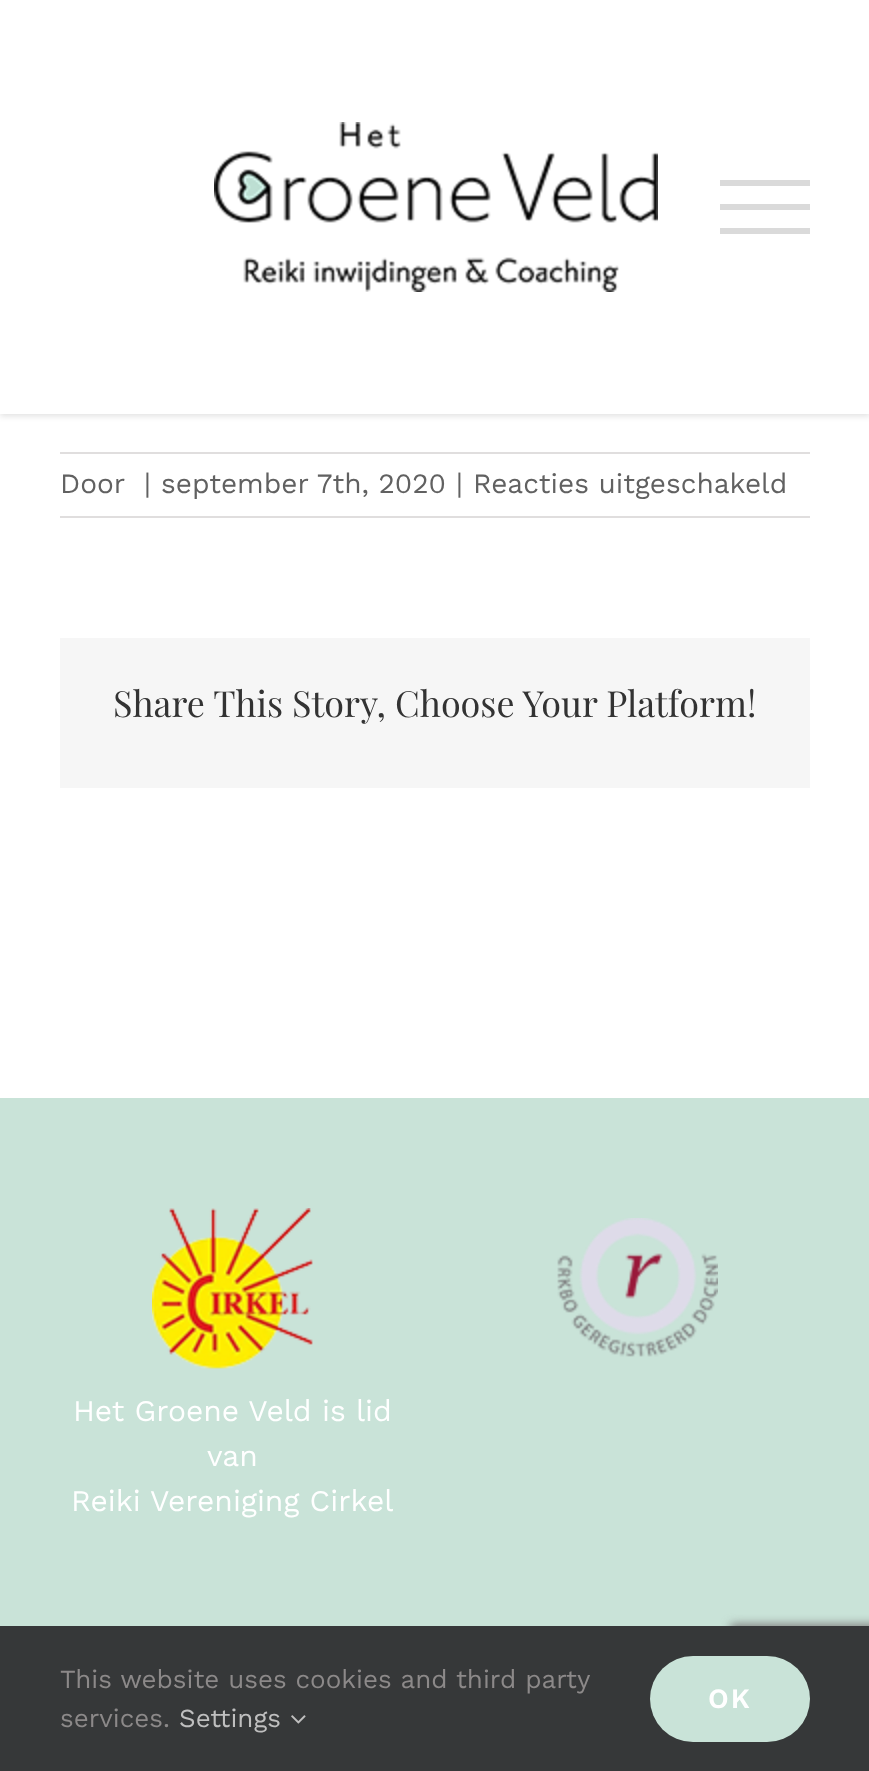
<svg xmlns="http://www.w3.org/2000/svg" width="869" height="1771">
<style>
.a{font:28px Work Sans;fill:#616161}
.b{font:36px Playfair Display;fill:#333}
.c{font:30px Work Sans;fill:#fff}
.d{font:26px Work Sans;fill:#8c8989}
.e{font:26px Work Sans;fill:#bfbfbf}
.f{font:600 28px Work Sans;letter-spacing:2px;fill:#fff}
</style>
<rect width="100%" height="100%" fill="#fff"/>
<path fill="#0000001f" filter="blur(3px)" d="M0 2h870v414H0z"/>
<path fill="#fff" d="M0 0h869v414H0z"/>
<image href="1.png" x="214" y="122" width="444" height="170"/>
<path fill="#dadada" d="M720 180h90v6H720z"/>
<path fill="#dadada" d="M720 204h90v6H720z"/>
<path fill="#dadada" d="M720 228h90v6H720z"/>
<path fill="#e0dede" d="M60 452h750v2H60z"/>
<path fill="#e0dede" d="M60 516h750v2H60z"/>
<path fill="#f6f6f6" d="M60 638h750v150H60z"/>
<path fill="#c9e3d8" d="M0 1098h869v528H0z"/>
<image href="2.png" x="557" y="1218" width="161" height="139"/>
<image href="3.png" x="152" y="1208" width="161" height="161"/>
<rect fill="#808080" filter="blur(5px)" x="730" y="1624" width="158" height="120" rx="4"/>
<path fill="#363839" d="M0 1626h869v145H0z"/>
<image href="4.png" x="291" y="1715" width="15" height="9"/>
<rect fill="#c9e3d8" x="650" y="1656" width="160" height="86" rx="43"/>
<text class="a" x="60" y="493">Door</text>
<text class="a" x="144" y="493">|</text>
<text class="a" x="161" y="493">september 7th, 2020</text>
<text class="a" x="456" y="493">|</text>
<text class="a" x="473" y="493">Reacties uitgeschakeld</text>
<text class="b" x="113" y="717">Share This Story, Choose Your Platform!</text>
<text class="c" x="73" y="1421">Het Groene Veld is lid</text>
<text class="c" x="207" y="1466">van</text>
<text class="c" x="71" y="1511">Reiki Vereniging Cirkel</text>
<text class="d" x="60" y="1688">This website uses cookies and third party</text>
<text class="d" x="60" y="1727">services.</text>
<text class="e" x="179" y="1727">Settings</text>
<text class="f" x="708" y="1708">OK</text>
</svg>
